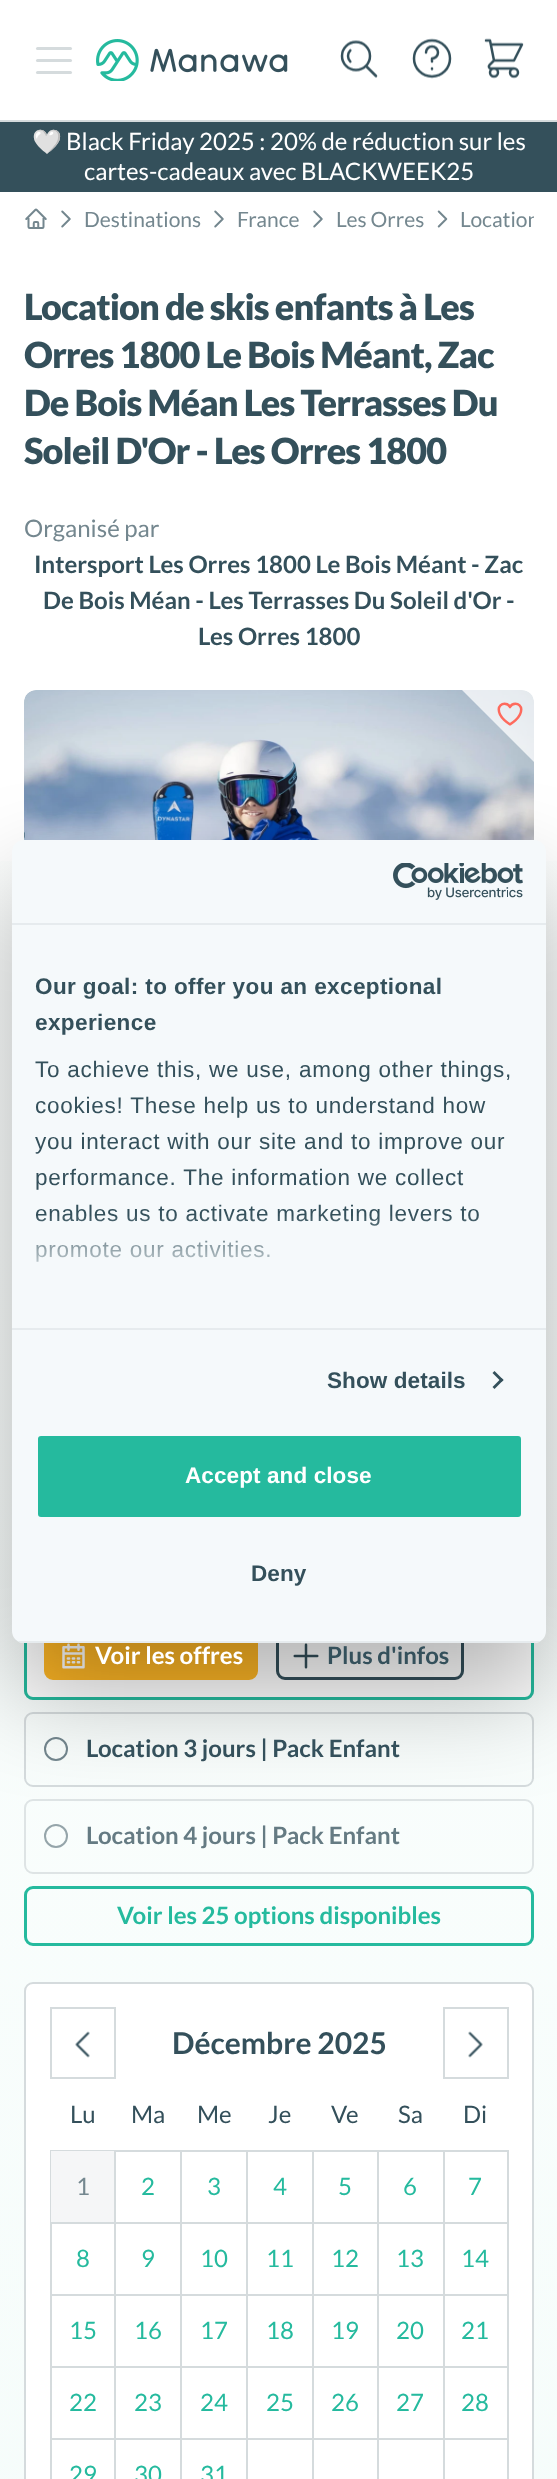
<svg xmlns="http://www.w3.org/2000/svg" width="557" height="2479">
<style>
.a{font:24px Noto Color Emoji;fill:#fff}
.b{font:24px Lato;fill:#fff}
.c{font:21px Lato;fill:#74878f}
.d{font:900 36px Lato;letter-spacing:-0.9px;fill:#34505b}
.e{font:24px Lato;fill:#74878f}
.f{font:bold 24px Lato;fill:#34505b}
.g{font:bold 24px Lato;fill:#fff}
.h{font:bold 24px Lato;fill:#657b83}
.i{font:bold 24px Lato;fill:#25ba9e}
.j{font:bold 30px Lato;fill:#34505b}
.k{font:24px Lato;fill:#34505b}
.l{font:24px Lato;fill:#25ba9e}
.m{font:bold 22.5px Liberation Sans;letter-spacing:0.4px;fill:#34505b}
.n{font:22.5px Liberation Sans;letter-spacing:0.75px;fill:#34505b}
.o{font:bold 22.5px Liberation Sans;letter-spacing:0.1px;fill:#34505b}
.p{font:bold 22.5px Liberation Sans;letter-spacing:0.1px;fill:#fff}
</style>
<defs>
<linearGradient id="g1" gradientUnits="userSpaceOnUse" x1="279" y1="246" x2="279" y2="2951"><stop offset="0" stop-color="#fff"/><stop offset="1" stop-color="#f4fcfa"/></linearGradient>
<clipPath id="clip1"><rect x="12" y="840" width="534" height="803" rx="12"/></clipPath>
<clipPath id="clip2"><path d="M461 204h73v30H461z"/></clipPath>
<linearGradient id="g2" gradientUnits="userSpaceOnUse" x1="269" y1="1327" x2="269" y2="1214"><stop offset="0" stop-color="#f5f9fb"/><stop offset="0.5" stop-color="#f5f9fb" stop-opacity="0.8"/><stop offset="1" stop-color="#f5f9fb" stop-opacity="0"/></linearGradient>
</defs>
<rect width="100%" height="100%" fill="#fff"/>
<path fill="#d5dbdd" d="M0 120h557v2H0z"/>
<rect fill="#d5dbdd" x="36" y="47" width="36" height="3" rx="1.5"/>
<rect fill="#d5dbdd" x="36" y="59" width="36" height="3" rx="1.5"/>
<rect fill="#d5dbdd" x="36" y="71" width="36" height="3" rx="1.5"/>
<image href="1.png" x="96" y="39" width="192" height="42"/>
<image href="2.png" x="340" y="40" width="38" height="38"/>
<image href="3.png" x="412" y="38" width="40" height="41"/>
<image href="4.png" x="484" y="38" width="40" height="41"/>
<path fill="#34505b" d="M0 122h557v70H0z"/>
<image href="5.png" x="25" y="208" width="22" height="21"/>
<image href="6.png" x="61" y="210" width="10" height="18"/>
<image href="6.png" x="214" y="210" width="10" height="18"/>
<image href="6.png" x="313" y="210" width="10" height="18"/>
<image href="7.png" x="437" y="210" width="11" height="18"/>
<path fill="url(#g1)" d="M0 861h557v1618H0z"/>
<rect fill="#f5f6f7" x="24" y="690" width="510" height="341" rx="12"/>
<image href="8.png" x="24" y="690" width="510" height="150"/>
<path fill="#ffffffbf" d="M534 690v72l-72-72z"/>
<image href="9.png" x="497" y="702" width="26" height="24"/>
<rect fill="#fff" stroke="#d5dbdd" stroke-width="2" x="25" y="1404" width="508" height="295" rx="8"/>
<rect fill="none" stroke="#25ba9e" stroke-width="3" x="25.5" y="1404.5" width="507" height="294" rx="7.5"/>
<rect fill="#ffb725" stroke="#ffb725" stroke-width="3" x="45.5" y="1633.5" width="211" height="45" rx="7.5"/>
<image href="10.png" x="62" y="1643" width="23" height="26"/>
<rect fill="none" stroke="#34505b" stroke-width="3" x="277.5" y="1633.5" width="185" height="45" rx="7.5"/>
<image href="11.png" x="293" y="1643" width="26" height="26"/>
<rect fill="none" stroke="#d5dbdd" stroke-width="2" x="25" y="1713" width="508" height="73" rx="8"/>
<circle fill="none" stroke="#74878f" stroke-width="2" cx="56" cy="1749" r="11"/>
<rect fill="none" stroke="#dee4e5" stroke-width="2" x="25" y="1800" width="508" height="73" rx="8"/>
<circle fill="none" stroke="#95a5aa" stroke-width="2" cx="56" cy="1836" r="11"/>
<rect fill="none" stroke="#25ba9e" stroke-width="3" x="25.5" y="1887.5" width="507" height="57" rx="7.5"/>
<rect fill="#fff" stroke="#d5dbdd" stroke-width="2" x="25" y="1983" width="508" height="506" rx="8"/>
<path fill="none" stroke="#d5dbdd" stroke-width="2" d="M51 2008h64v70H51z"/>
<image href="12.png" x="75" y="2031" width="15" height="27"/>
<path fill="none" stroke="#d5dbdd" stroke-width="2" d="M444 2008h64v70H444z"/>
<image href="13.png" x="468" y="2031" width="15" height="27"/>
<path fill="#d5dbdd" d="M443 2150h66v2H443z"/>
<path fill="#d5dbdd" d="M443 2222h66v2H443z"/>
<path fill="#d5dbdd" d="M443 2294h66v2H443z"/>
<path fill="#d5dbdd" d="M443 2366h66v2H443z"/>
<path fill="#d5dbdd" d="M443 2438h66v2H443z"/>
<path fill="#d5dbdd" d="M443 2438h2v41H443z"/>
<path fill="#d5dbdd" d="M377 2438h67v2H377z"/>
<path fill="#d5dbdd" d="M443 2366h2v73H443z"/>
<path fill="#d5dbdd" d="M377 2366h67v2H377z"/>
<path fill="#d5dbdd" d="M443 2294h2v73H443z"/>
<path fill="#d5dbdd" d="M377 2294h67v2H377z"/>
<path fill="#d5dbdd" d="M443 2222h2v73H443z"/>
<path fill="#d5dbdd" d="M377 2222h67v2H377z"/>
<path fill="#d5dbdd" d="M443 2150h2v73H443z"/>
<path fill="#d5dbdd" d="M377 2150h67v2H377z"/>
<path fill="#d5dbdd" d="M377 2438h2v41H377z"/>
<path fill="#d5dbdd" d="M312 2438h66v2H312z"/>
<path fill="#d5dbdd" d="M377 2366h2v73H377z"/>
<path fill="#d5dbdd" d="M312 2366h66v2H312z"/>
<path fill="#d5dbdd" d="M377 2294h2v73H377z"/>
<path fill="#d5dbdd" d="M312 2294h66v2H312z"/>
<path fill="#d5dbdd" d="M377 2222h2v73H377z"/>
<path fill="#d5dbdd" d="M312 2222h66v2H312z"/>
<path fill="#d5dbdd" d="M377 2150h2v73H377z"/>
<path fill="#d5dbdd" d="M312 2150h66v2H312z"/>
<path fill="#d5dbdd" d="M312 2438h2v41H312z"/>
<path fill="#d5dbdd" d="M246 2438h68v2H246z"/>
<path fill="#d5dbdd" d="M312 2366h2v73H312z"/>
<path fill="#d5dbdd" d="M246 2366h68v2H246z"/>
<path fill="#d5dbdd" d="M312 2294h2v73H312z"/>
<path fill="#d5dbdd" d="M246 2294h68v2H246z"/>
<path fill="#d5dbdd" d="M312 2222h2v73H312z"/>
<path fill="#d5dbdd" d="M246 2222h68v2H246z"/>
<path fill="#d5dbdd" d="M312 2150h2v73H312z"/>
<path fill="#d5dbdd" d="M246 2150h68v2H246z"/>
<path fill="#d5dbdd" d="M246 2438h2v41H246z"/>
<path fill="#d5dbdd" d="M180 2438h68v2H180z"/>
<path fill="#d5dbdd" d="M246 2366h2v73H246z"/>
<path fill="#d5dbdd" d="M180 2366h68v2H180z"/>
<path fill="#d5dbdd" d="M246 2294h2v73H246z"/>
<path fill="#d5dbdd" d="M180 2294h68v2H180z"/>
<path fill="#d5dbdd" d="M246 2222h2v73H246z"/>
<path fill="#d5dbdd" d="M180 2222h68v2H180z"/>
<path fill="#d5dbdd" d="M246 2150h2v73H246z"/>
<path fill="#d5dbdd" d="M180 2150h68v2H180z"/>
<path fill="#d5dbdd" d="M180 2438h2v41H180z"/>
<path fill="#d5dbdd" d="M114 2438h68v2H114z"/>
<path fill="#d5dbdd" d="M180 2366h2v73H180z"/>
<path fill="#d5dbdd" d="M114 2366h68v2H114z"/>
<path fill="#d5dbdd" d="M180 2294h2v73H180z"/>
<path fill="#d5dbdd" d="M114 2294h68v2H114z"/>
<path fill="#d5dbdd" d="M180 2222h2v73H180z"/>
<path fill="#d5dbdd" d="M114 2222h68v2H114z"/>
<path fill="#d5dbdd" d="M180 2150h2v73H180z"/>
<path fill="#d5dbdd" d="M114 2150h68v2H114z"/>
<path fill="#d5dbdd" d="M114 2438h2v41H114z"/>
<path fill="#d5dbdd" d="M50 2438h66v2H50z"/>
<path fill="#d5dbdd" d="M114 2366h2v73H114z"/>
<path fill="#d5dbdd" d="M50 2366h66v2H50z"/>
<path fill="#d5dbdd" d="M114 2294h2v73H114z"/>
<path fill="#d5dbdd" d="M50 2294h66v2H50z"/>
<path fill="#d5dbdd" d="M114 2222h2v73H114z"/>
<path fill="#d5dbdd" d="M50 2222h66v2H50z"/>
<path fill="#d5dbdd" d="M114 2150h2v73H114z"/>
<path fill="#d5dbdd" d="M50 2150h66v2H50z"/>
<path fill="#d5dbdd" d="M50 2438h2v41H50z"/>
<path fill="#d5dbdd" d="M50 2366h2v73H50z"/>
<path fill="#d5dbdd" d="M50 2294h2v73H50z"/>
<path fill="#d5dbdd" d="M50 2222h2v73H50z"/>
<path fill="#d5dbdd" d="M50 2150h2v73H50z"/>
<path fill="#f5f6f7" d="M51 2151h63v71H51z"/>
<path fill="#d5dbdd" d="M507 2438h2v41H507z"/>
<path fill="#d5dbdd" d="M507 2366h2v73H507z"/>
<path fill="#d5dbdd" d="M507 2294h2v73H507z"/>
<path fill="#d5dbdd" d="M507 2222h2v73H507z"/>
<path fill="#d5dbdd" d="M507 2150h2v73H507z"/>
<rect fill="#0000004d" filter="blur(51px)" x="12" y="888" width="534" height="803" rx="12"/>
<rect fill="#f5f9fb" x="12" y="840" width="534" height="803" rx="12"/>
<path fill="#e6ebee" d="M12 923h534v2H12z"/>
<image href="14.png" x="393" y="863" width="130" height="37"/>
<path fill="#e6ebee" d="M12 1328h534v2H12z"/>
<path fill="#34505b" d="M494.5 1371l9 9l-2 2l-9-9z"/>
<path fill="#34505b" d="M501.5 1378l2 2l-9 9l-2-2z"/>
<g clip-path="url(#clip1)">
<path fill="#e6ebee" d="M12 1641h534v2H12z"/>
</g>
<rect fill="#25ba9e" stroke="#f5f9fb" stroke-width="3" x="36.5" y="1434.5" width="486" height="84" rx="4.5"/>
<text class="a" x="32" y="150">🤍</text>
<text class="b" x="66" y="150">Black Friday 2025 : 20% de réduction sur les</text>
<text class="b" x="84" y="180">cartes-cadeaux avec BLACKWEEK25</text>
<text class="c" x="84" y="227">Destinations</text>
<text class="c" x="237" y="227">France</text>
<text class="c" x="336" y="227">Les Orres</text>
<g clip-path="url(#clip2)">
<text class="c" x="460" y="227">Location</text>
</g>
<text class="d" x="24" y="320">Location de skis enfants à Les</text>
<text class="d" x="24" y="368">Orres 1800 Le Bois Méant, Zac</text>
<text class="d" x="24" y="416">De Bois Méan Les Terrasses Du</text>
<text class="d" x="24" y="464">Soleil D'Or - Les Orres 1800</text>
<text class="e" x="24" y="537">Organisé par</text>
<text class="f" x="34" y="573">Intersport Les Orres 1800 Le Bois Méant - Zac</text>
<text class="f" x="43" y="609">De Bois Méan - Les Terrasses Du Soleil d'Or -</text>
<text class="f" x="198" y="645">Les Orres 1800</text>
<text class="g" x="95" y="1664">Voir les offres</text>
<text class="f" x="327" y="1664">Plus d'infos</text>
<text class="f" x="86" y="1757">Location 3 jours | Pack Enfant</text>
<text class="h" x="86" y="1844">Location 4 jours | Pack Enfant</text>
<text class="i" x="117" y="1924">Voir les 25 options disponibles</text>
<text class="j" x="172" y="2054">Décembre 2025</text>
<text class="k" x="70" y="2123">Lu</text>
<text class="k" x="131" y="2123">Ma</text>
<text class="k" x="197" y="2123">Me</text>
<text class="k" x="268" y="2123">Je</text>
<text class="k" x="331" y="2123">Ve</text>
<text class="k" x="398" y="2123">Sa</text>
<text class="k" x="463" y="2123">Di</text>
<text class="e" x="76" y="2195">1</text>
<text class="l" x="141" y="2195">2</text>
<text class="l" x="207" y="2195">3</text>
<text class="l" x="273" y="2195">4</text>
<text class="l" x="338" y="2195">5</text>
<text class="l" x="403" y="2195">6</text>
<text class="l" x="468" y="2195">7</text>
<text class="l" x="76" y="2267">8</text>
<text class="l" x="141" y="2267">9</text>
<text class="l" x="200" y="2267">10</text>
<text class="l" x="266" y="2267">11</text>
<text class="l" x="331" y="2267">12</text>
<text class="l" x="396" y="2267">13</text>
<text class="l" x="461" y="2267">14</text>
<text class="l" x="69" y="2339">15</text>
<text class="l" x="134" y="2339">16</text>
<text class="l" x="200" y="2339">17</text>
<text class="l" x="266" y="2339">18</text>
<text class="l" x="331" y="2339">19</text>
<text class="l" x="396" y="2339">20</text>
<text class="l" x="461" y="2339">21</text>
<text class="l" x="69" y="2411">22</text>
<text class="l" x="134" y="2411">23</text>
<text class="l" x="200" y="2411">24</text>
<text class="l" x="266" y="2411">25</text>
<text class="l" x="331" y="2411">26</text>
<text class="l" x="396" y="2411">27</text>
<text class="l" x="461" y="2411">28</text>
<text class="l" x="69" y="2483">29</text>
<text class="l" x="134" y="2483">30</text>
<text class="l" x="200" y="2483">31</text>
<text class="m" x="35" y="994">Our goal: to offer you an exceptional</text>
<text class="m" x="35" y="1030">experience</text>
<text class="n" x="35" y="1077">To achieve this, we use, among other things,</text>
<text class="n" x="35" y="1113">cookies! These help us to understand how</text>
<text class="n" x="35" y="1149">you interact with our site and to improve our</text>
<text class="n" x="35" y="1185">performance. The information we collect</text>
<text class="n" x="35" y="1221">enables us to activate marketing levers to</text>
<text class="n" x="35" y="1257">promote our activities.</text>
<path fill="url(#g2)" d="M35 1216h443v46H35z"/>
<text class="o" x="327" y="1388">Show details</text>
<text class="p" x="185" y="1483">Accept and close</text>
<text class="o" x="251" y="1581">Deny</text>
</svg>
